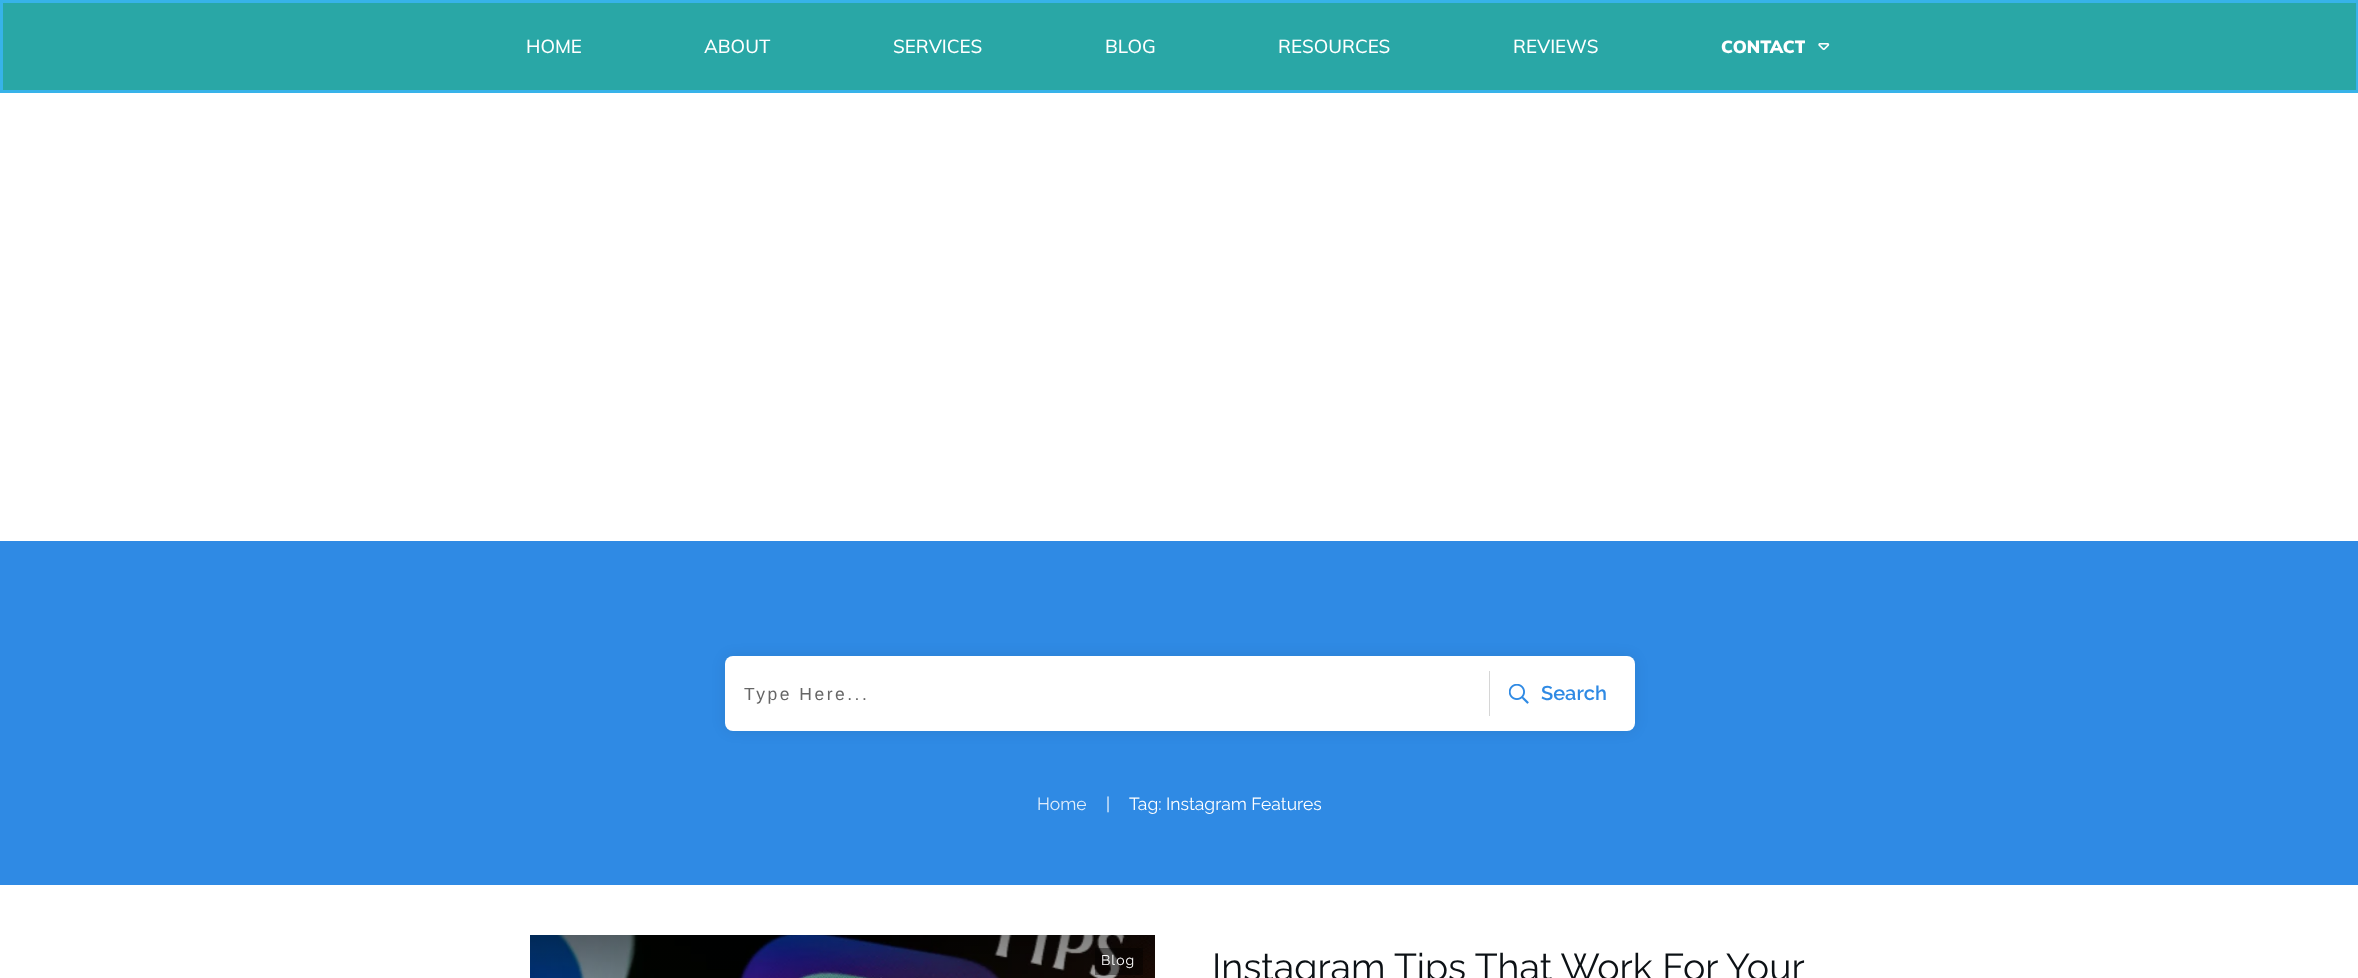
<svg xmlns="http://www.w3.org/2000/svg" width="2358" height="978">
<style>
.a{font:500 18.75px Muli;fill:#fff}
.b{font:900 17.5px Muli;fill:#fff}
.c{font:17.5px Liberation Sans;letter-spacing:2.5px;fill:#666}
.d{font:600 20px Raleway;fill:#2f8ae4}
.e{font:17.5px Raleway;fill:#e0edfb}
.f{font:17.5px Raleway;fill:#fff}
.g{font:14px Raleway;letter-spacing:1px;fill:#fff}
.h{font:37.5px Raleway;fill:#0c1115}
</style>
<defs>
<clipPath id="clip1"><path d="M1721 29h84v35H1721z"/></clipPath>
</defs>
<rect width="100%" height="100%" fill="#fff"/>
<path fill="#29a7a6" stroke="#37b3e9" stroke-width="3" d="M1.5 1.5h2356v90H1.5z"/>
<image href="1.png" x="1818" y="43" width="12" height="8"/>
<path fill="#2f8ae4" d="M0 541h2358v344H0z"/>
<rect fill="#00000014" filter="blur(7px)" x="725" y="656" width="910" height="75" rx="8"/>
<rect fill="#fff" x="725" y="656" width="910" height="75" rx="8"/>
<path fill="#d6d6d6" d="M1489 671h1v45H1489z"/>
<image href="2.png" x="1509" y="684" width="20" height="20"/>
<image href="3.png" x="530" y="935" width="625" height="43"/>
<path fill="#00000066" d="M1095 948h48v27H1095z"/>
<text class="a" x="526" y="53">HOME</text>
<text class="a" x="704" y="53">ABOUT</text>
<text class="a" x="893" y="53">SERVICES</text>
<text class="a" x="1105" y="53">BLOG</text>
<text class="a" x="1278" y="53">RESOURCES</text>
<text class="a" x="1513" y="53">REVIEWS</text>
<g clip-path="url(#clip1)">
<text class="b" x="1721" y="53">CONTACT</text>
</g>
<text class="c" x="744" y="700">Type Here...</text>
<text class="d" x="1541" y="700">Search</text>
<text class="e" x="1037" y="810">Home</text>
<text class="f" x="1106" y="810">|</text>
<text class="f" x="1129" y="810">Tag: Instagram Features</text>
<text class="g" x="1101" y="965">Blog</text>
<text class="h" x="1212" y="980">Instagram Tips That Work For Your</text>
</svg>
